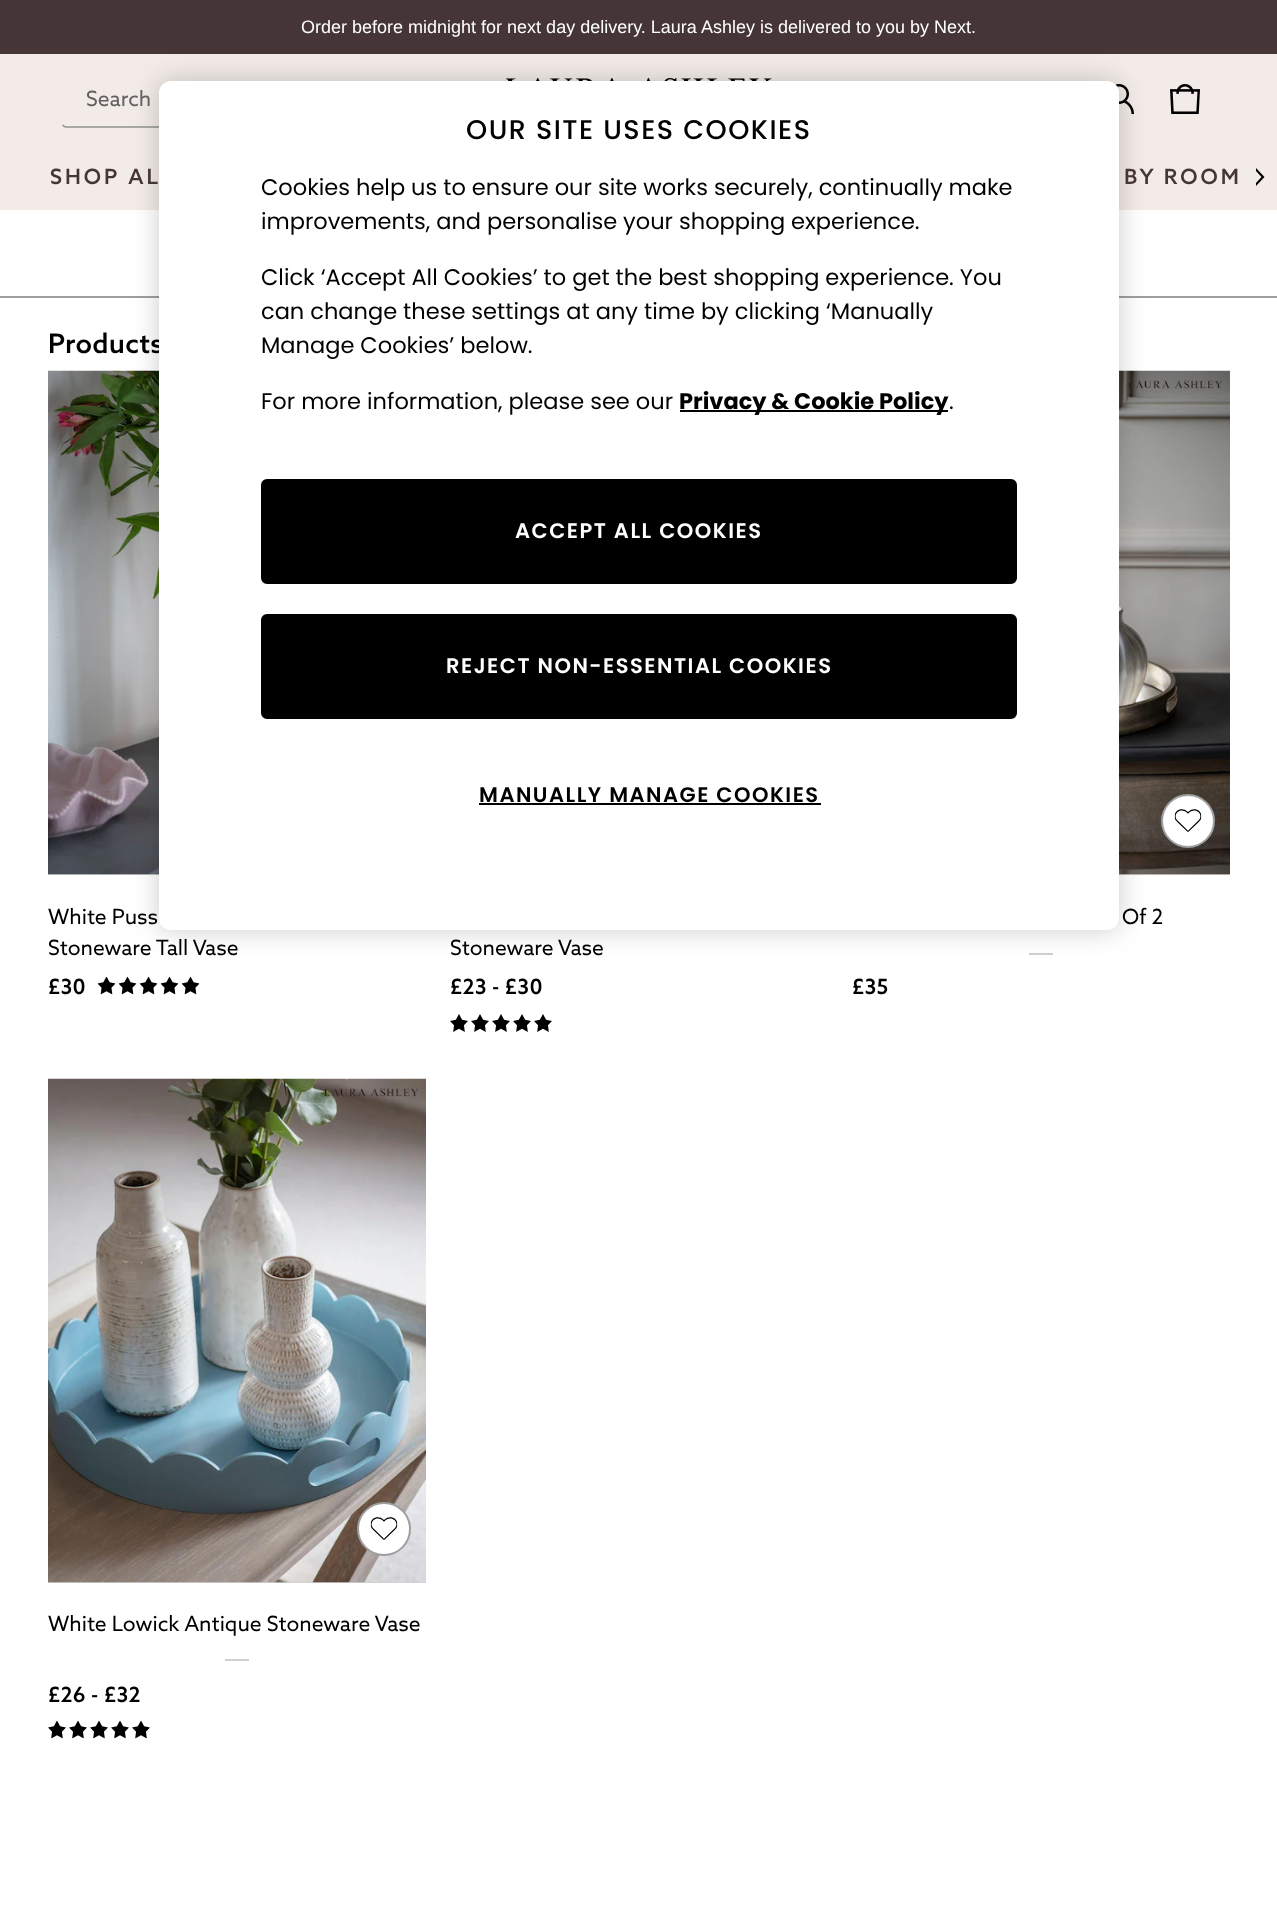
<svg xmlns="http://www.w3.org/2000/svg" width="1277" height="1913">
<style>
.a{font:18px Liberation Sans;fill:#fff}
.b{font:21px 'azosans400';fill:#616161}
.c{font:600 21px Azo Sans;letter-spacing:3px;fill:#453536}
.d{font:600 27px Azo Sans;letter-spacing:0.25px;fill:#000}
.e{font:600 21px Poppins;letter-spacing:1.5px;fill:#000}
.f{font:600 21px Poppins;letter-spacing:1.5px;fill:#fff}
.g{font:22.5px Poppins;fill:#000}
.h{font:bold 22.5px Poppins;fill:#000}
.i{font:500 27px Poppins;letter-spacing:1.5px;fill:#000}
.j{font:21px 'azosans400';fill:#000}
.k{font:600 21px Azo Sans;letter-spacing:0.25px;fill:#000}
</style>
<defs>
<clipPath id="clip1"><path d="M1256 168h10v18H1256z"/></clipPath>
</defs>
<rect width="100%" height="100%" fill="#fff"/>
<path fill="#453536" d="M0 0h1277v54H0z"/>
<path fill="#f2ebe7" d="M0 54h1277v156H0z"/>
<image href="1.png" x="506" y="78" width="266" height="3"/>
<path fill="none" stroke="#949494" stroke-width="1.5" d="M360.5 125c-1 1-2 2-3.5 2h-291c-1.5 0-2.5-1-3.5-2"/>
<rect fill="#f2ebe7" x="308" y="72" width="54" height="54" rx="6"/>
<image href="2.png" x="1114" y="84" width="20" height="30"/>
<image href="3.png" x="1170" y="84" width="30" height="30"/>
<g clip-path="url(#clip1)">
<path fill="#000" fill-rule="evenodd" d="M1254.5 169.5l1.5-1.5l8.5 9l-8.5 9l-1.5-1.5l7-7.5z"/>
</g>
<path fill="#9e9e9e" d="M0 296h1277v2H0z"/>
<path fill="#d1d1d1" d="M48 874h111v1H48z"/>
<image href="4.png" x="48" y="370" width="111" height="505"/>
<path fill="#d1d1d1" d="M1119 874h111v1H1119z"/>
<image href="8.png" x="1119" y="370" width="111" height="505"/>
<path fill="#d1d1d1" d="M1029 953h24v2H1029z"/>
<rect fill="#00000033" filter="blur(13.5px)" x="159" y="81" width="960" height="849" rx="12"/>
<image href="5.png" x="97" y="976" width="19" height="19"/>
<image href="5.png" x="118" y="976" width="19" height="19"/>
<image href="5.png" x="139" y="976" width="19" height="19"/>
<image href="5.png" x="160" y="976" width="19" height="19"/>
<image href="5.png" x="181" y="976" width="19" height="19"/>
<image href="6.png" x="450" y="1014" width="18" height="18"/>
<image href="6.png" x="471" y="1014" width="18" height="18"/>
<image href="7.png" x="492" y="1014" width="18" height="18"/>
<image href="6.png" x="513" y="1014" width="18" height="18"/>
<image href="6.png" x="534" y="1014" width="18" height="18"/>
<circle fill="#fff" stroke="#9e9e9e" stroke-width="2" cx="1188" cy="821" r="26"/>
<image href="9.png" x="1174" y="809" width="28" height="23"/>
<path fill="#d1d1d1" d="M48 1582h378v1H48z"/>
<image href="10.png" x="48" y="1078" width="378" height="505"/>
<circle fill="#fff" stroke="#9e9e9e" stroke-width="2" cx="384" cy="1529" r="26"/>
<image href="11.png" x="370" y="1517" width="28" height="23"/>
<path fill="#d1d1d1" d="M225 1659h24v2H225z"/>
<image href="12.png" x="48" y="1720" width="18" height="19"/>
<image href="12.png" x="69" y="1720" width="18" height="19"/>
<image href="12.png" x="90" y="1720" width="18" height="19"/>
<image href="12.png" x="111" y="1720" width="18" height="19"/>
<image href="12.png" x="132" y="1720" width="18" height="19"/>
<text class="a" x="301" y="33">Order before midnight for next day delivery. Laura Ashley is delivered to you by Next.</text>
<text class="b" x="86" y="106">Search</text>
<text class="c" x="50" y="184">SHOP AL</text>
<text class="c" x="1124" y="184">BY ROOM</text>
<text class="d" x="48" y="353">Products</text>
<rect fill="#fff" x="159" y="81" width="960" height="849" rx="12"/>
<text class="e" x="479" y="802">MANUALLY MANAGE COOKIES</text>
<path fill="#000" d="M479 803h342v2H479z"/>
<rect fill="#000" stroke="#000" stroke-width="2" x="262" y="615" width="754" height="103" rx="5"/>
<text class="f" x="446" y="673">REJECT NON-ESSENTIAL COOKIES</text>
<rect fill="#000" stroke="#000" stroke-width="2" x="262" y="480" width="754" height="103" rx="5"/>
<text class="f" x="515" y="538">ACCEPT ALL COOKIES</text>
<text class="g" x="949" y="409">.</text>
<path fill="#000" d="M680 410h268v2H680z"/>
<text class="h" x="679" y="409">Privacy &amp; Cookie Policy</text>
<text class="g" x="261" y="409">For more information, please see our</text>
<text class="g" x="261" y="353">Manage Cookies’ below.</text>
<text class="g" x="261" y="319">can change these settings at any time by clicking ‘Manually</text>
<text class="g" x="261" y="285">Click ‘Accept All Cookies’ to get the best shopping experience. You</text>
<text class="g" x="261" y="229">improvements, and personalise your shopping experience.</text>
<text class="g" x="261" y="195">Cookies help us to ensure our site works securely, continually make</text>
<text class="i" x="466" y="139">OUR SITE USES COOKIES</text>
<text class="j" x="48" y="924">White Puss</text>
<text class="j" x="48" y="955">Stoneware Tall Vase</text>
<text class="k" x="48" y="994">£30</text>
<text class="j" x="450" y="955">Stoneware Vase</text>
<text class="k" x="450" y="994">£23 - £30</text>
<text class="j" x="1122" y="924">Of 2</text>
<text class="k" x="852" y="994">£35</text>
<text class="j" x="48" y="1631">White Lowick Antique Stoneware Vase</text>
<text class="k" x="48" y="1702">£26 - £32</text>
</svg>
